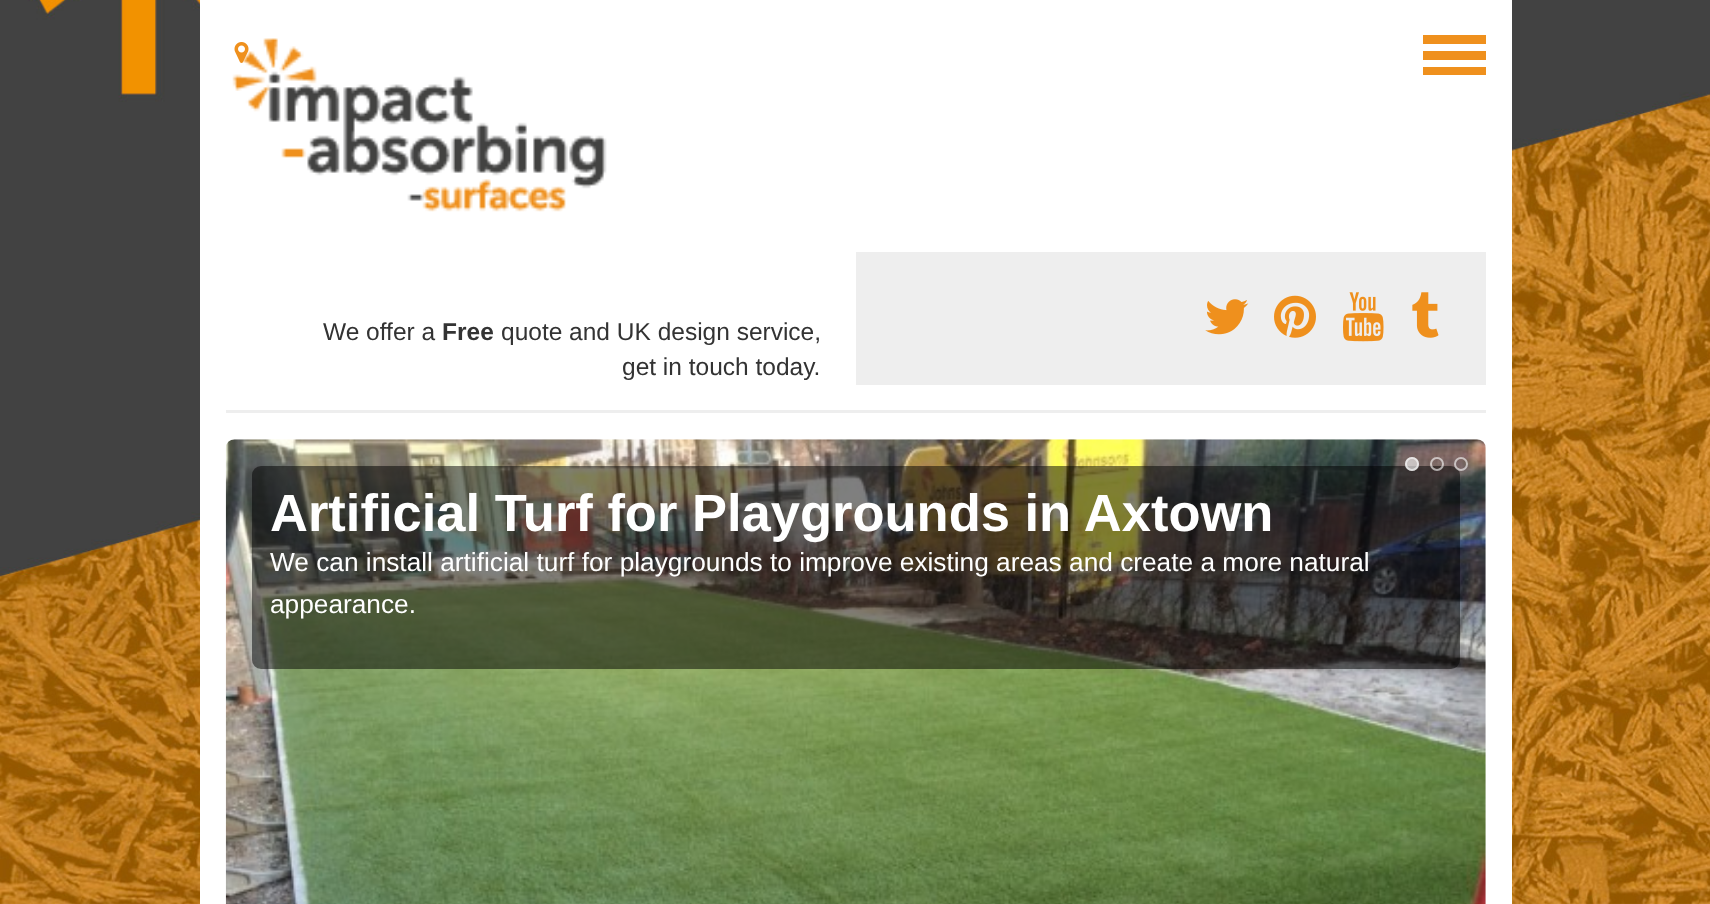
<svg xmlns="http://www.w3.org/2000/svg" width="1710" height="904">
<style>
.a{font:24.5px Liberation Sans;fill:#333}
.b{font:bold 24.5px Liberation Sans;fill:#333}
.c{font:bold 52.5px Liberation Sans;fill:#fff}
.d{font:26.25px Liberation Sans;fill:#fff}
</style>
<rect width="100%" height="100%" fill="#fff"/>
<image href="1.png" x="0" y="0" width="1710" height="904"/>
<path fill="#fff" d="M200 0h1312v904H200z"/>
<path fill="#eee" d="M226 410h1260v3H226z"/>
<path fill="#ef901d" d="M1423 35h63v9H1423z"/>
<path fill="#ef901d" d="M1423 51h63v9H1423z"/>
<path fill="#ef901d" d="M1423 67h63v8H1423z"/>
<image href="2.png" x="232" y="38" width="375" height="174"/>
<image href="3.png" x="234" y="42" width="15" height="21"/>
<path fill="#eee" d="M856 252h630v133H856z"/>
<image href="4.png" x="1205" y="299" width="44" height="36"/>
<image href="5.png" x="1274" y="295" width="42" height="43"/>
<image href="6.png" x="1343" y="292" width="41" height="50"/>
<image href="7.png" x="1412" y="292" width="27" height="46"/>
<image href="8.png" x="225" y="439" width="1261" height="465"/>
<rect fill="#00000080" x="252" y="466" width="1208" height="203" rx="9"/>
<circle fill="#ffffff99" cx="1412" cy="464" r="7"/>
<circle fill="none" stroke="#ffffff99" stroke-width="2" cx="1412" cy="464" r="6"/>
<circle fill="none" stroke="#ffffff99" stroke-width="2" cx="1437" cy="464" r="6"/>
<circle fill="none" stroke="#ffffff99" stroke-width="2" cx="1461" cy="464" r="6"/>
<text class="a" x="323" y="340">We offer a</text>
<text class="b" x="442" y="340">Free</text>
<text class="a" x="501" y="340">quote and UK design service,</text>
<text class="a" x="622" y="375">get in touch today.</text>
<text class="c" x="270" y="531">Artificial Turf for Playgrounds in Axtown</text>
<text class="d" x="270" y="571">We can install artificial turf for playgrounds to improve existing areas and create a more natural</text>
<text class="d" x="270" y="613">appearance.</text>
</svg>
